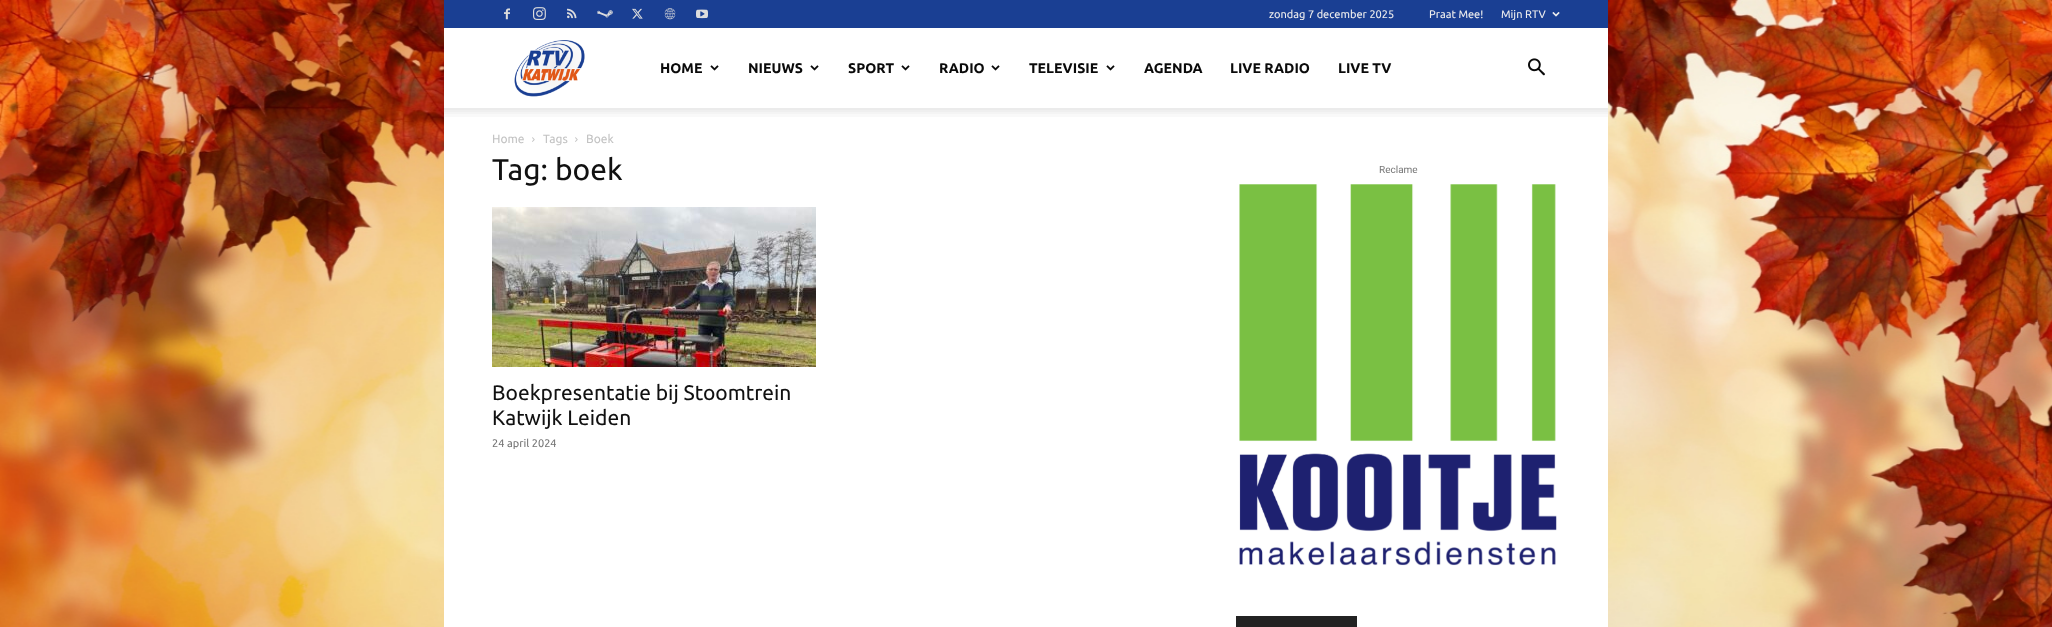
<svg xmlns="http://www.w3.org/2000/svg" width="2052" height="627">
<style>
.a{font:11px Ubuntu;fill:#eee}
.b{font:bold 14px Ubuntu;fill:#0a0a0a}
.c{font:12px Ubuntu;fill:#c3c3c3}
.d{font:30px Ubuntu;fill:#111}
.e{font:21px Ubuntu;fill:#111}
.f{font:11px Ubuntu;fill:#767676}
.g{font:10px Roboto;fill:#767676}
</style>
<rect width="100%" height="100%" fill="#fff"/>
<image href="1.png" x="0" y="0" width="2052" height="627"/>
<path fill="#1a3f93" d="M444 0h1164v28H444z"/>
<image href="2.png" x="504" y="8" width="6" height="12"/>
<image href="3.png" x="533" y="7" width="13" height="13"/>
<image href="4.png" x="567" y="8" width="10" height="11"/>
<image href="5.png" x="597" y="10" width="16" height="8"/>
<image href="6.png" x="632" y="8" width="11" height="11"/>
<image href="7.png" x="664" y="8" width="12" height="12"/>
<image href="8.png" x="696" y="9" width="12" height="10"/>
<image href="9.png" x="1552" y="12" width="8" height="5"/>
<path fill="#fff" d="M444 28h1164v599H444z"/>
<image href="10.png" x="514" y="40" width="71" height="57"/>
<image href="11.png" x="710" y="65" width="9" height="6"/>
<image href="11.png" x="810" y="65" width="9" height="6"/>
<image href="11.png" x="901" y="65" width="9" height="6"/>
<image href="11.png" x="991" y="65" width="9" height="6"/>
<image href="11.png" x="1106" y="65" width="9" height="6"/>
<image href="12.png" x="1528" y="58" width="17" height="18"/>
<image href="13.png" x="444" y="108" width="1164" height="9"/>
<image href="14.png" x="532" y="137" width="3" height="5"/>
<image href="14.png" x="575" y="137" width="3" height="5"/>
<image href="15.png" x="492" y="207" width="324" height="160"/>
<image href="16.png" x="1239" y="184" width="318" height="382"/>
<path fill="#222" d="M1236 616h121v11H1236z"/>
<text class="a" x="1269" y="18">zondag 7 december 2025</text>
<text class="a" x="1429" y="18">Praat Mee!</text>
<text class="a" x="1501" y="18">Mijn RTV</text>
<text class="b" x="660" y="73">HOME</text>
<text class="b" x="748" y="73">NIEUWS</text>
<text class="b" x="848" y="73">SPORT</text>
<text class="b" x="939" y="73">RADIO</text>
<text class="b" x="1029" y="73">TELEVISIE</text>
<text class="b" x="1144" y="73">AGENDA</text>
<text class="b" x="1230" y="73">LIVE RADIO</text>
<text class="b" x="1338" y="73">LIVE TV</text>
<text class="c" x="492" y="143">Home</text>
<text class="c" x="543" y="143">Tags</text>
<text class="c" x="586" y="143">Boek</text>
<text class="d" x="492" y="180">Tag: boek</text>
<text class="e" x="492" y="400">Boekpresentatie bij Stoomtrein</text>
<text class="e" x="492" y="425">Katwijk Leiden</text>
<text class="f" x="492" y="447">24 april 2024</text>
<text class="g" x="1379" y="173">Reclame</text>
</svg>
